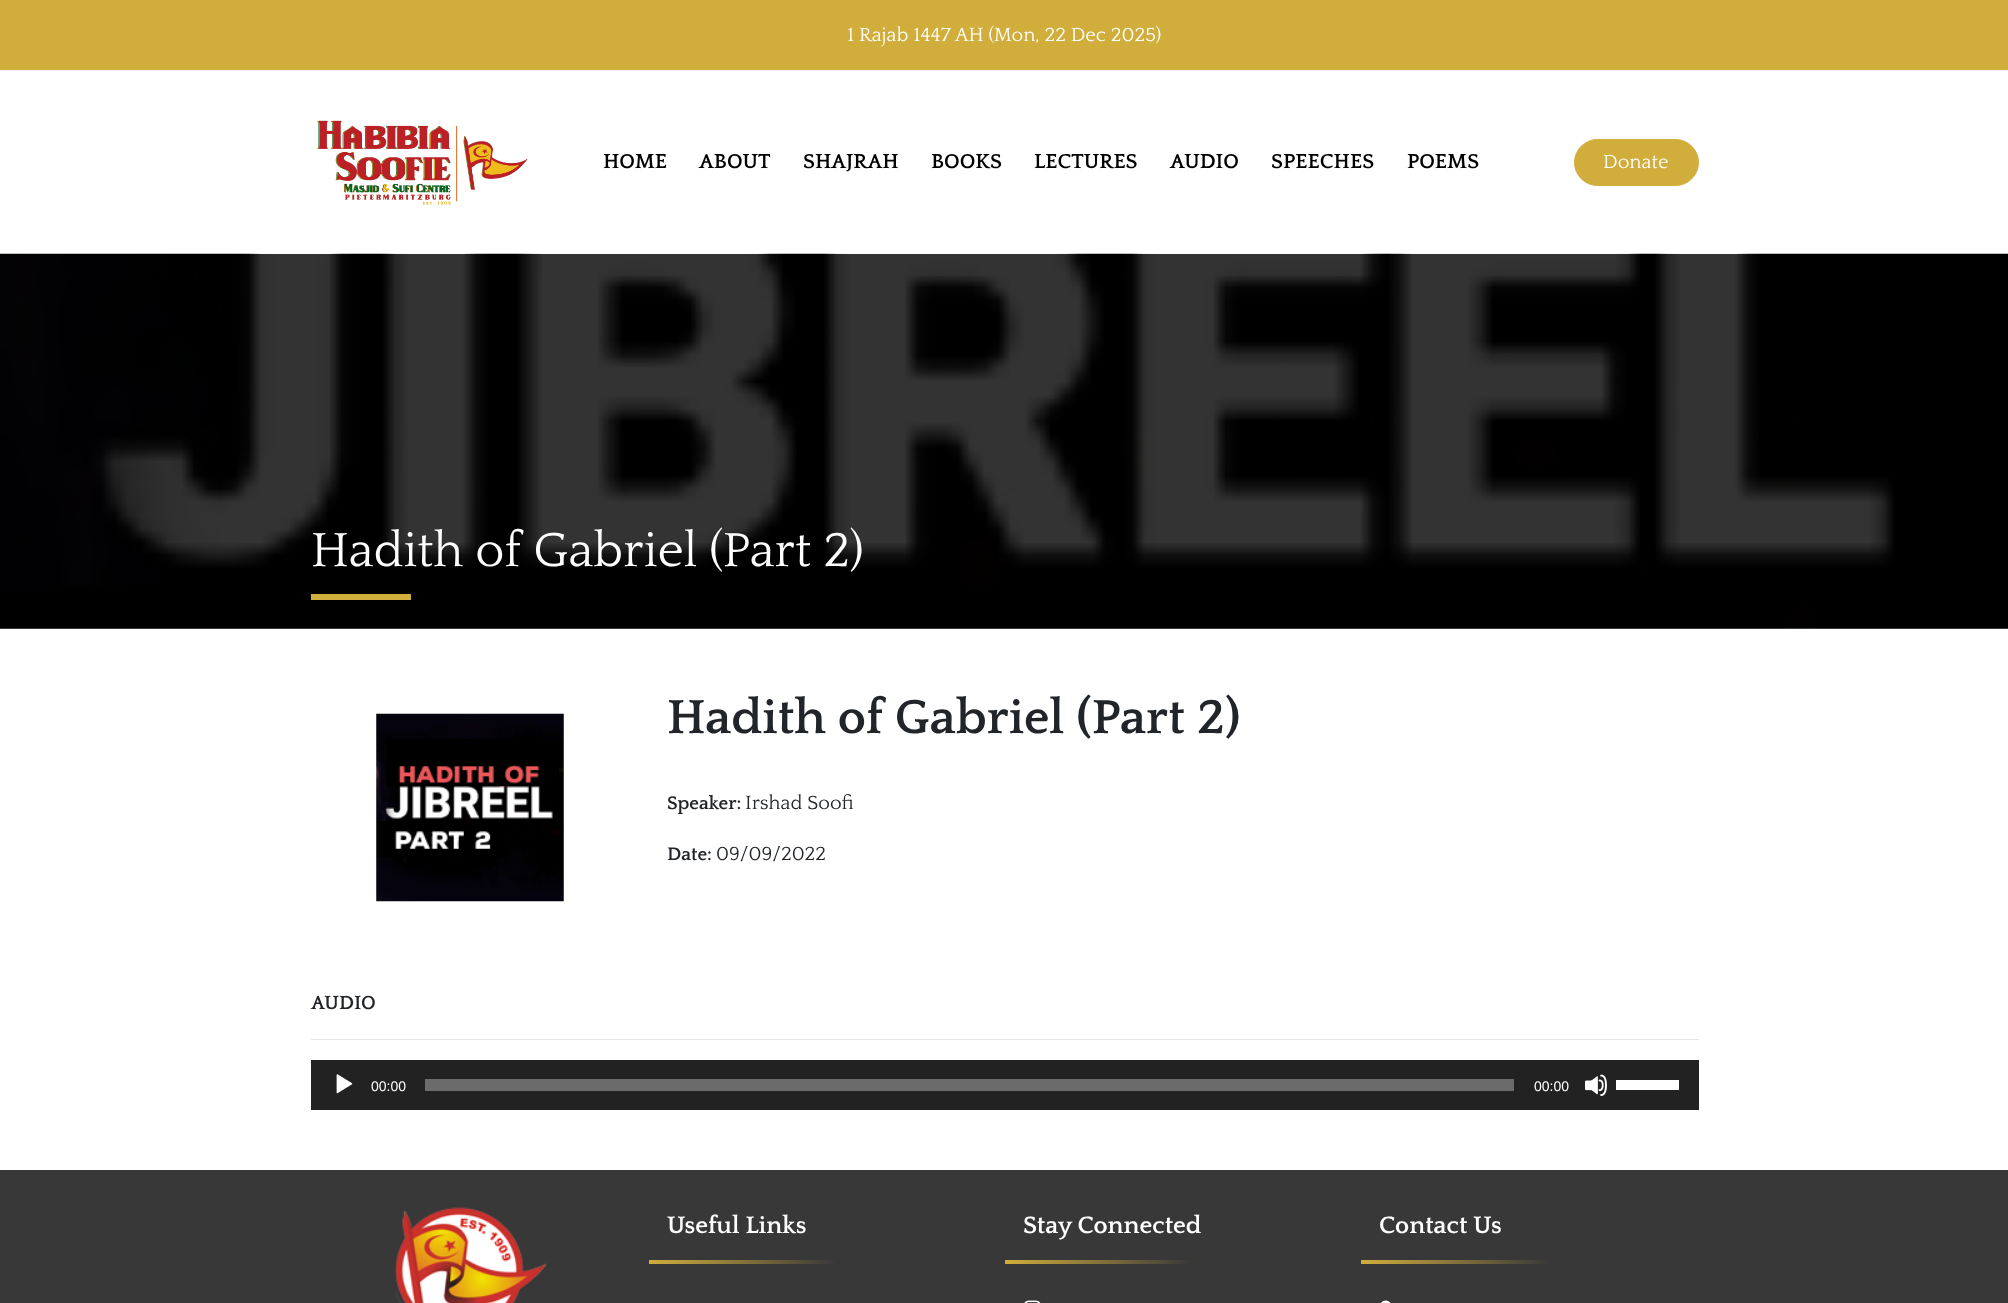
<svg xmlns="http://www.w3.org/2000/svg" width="2008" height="1303">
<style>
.a{font:20px Quattrocento;fill:#fff}
.b{font:bold 21.25px Quattrocento;fill:#000}
.c{font:50px Quattrocento;fill:#fff}
.d{font:bold 50px Quattrocento;fill:#212529}
.e{font:bold 19px Quattrocento;fill:#212529}
.f{font:20px Quattrocento;fill:#212529}
.g{font:bold 20px Quattrocento;fill:#212529}
.h{font:14px Liberation Sans;fill:#fff}
.i{font:bold 25px Quattrocento;fill:#fff}
</style>
<defs>
<linearGradient id="g1" gradientUnits="userSpaceOnUse" x1="649" y1="1260" x2="836" y2="1264"><stop offset="0" stop-color="#d1ad3c"/><stop offset="1" stop-color="#383838"/></linearGradient>
<linearGradient id="g2" gradientUnits="userSpaceOnUse" x1="1005" y1="1260" x2="1193" y2="1264"><stop offset="0" stop-color="#d1ad3c"/><stop offset="1" stop-color="#383838"/></linearGradient>
<linearGradient id="g3" gradientUnits="userSpaceOnUse" x1="1361" y1="1260" x2="1549" y2="1264"><stop offset="0" stop-color="#d1ad3c"/><stop offset="1" stop-color="#383838"/></linearGradient>
</defs>
<rect width="100%" height="100%" fill="#fff"/>
<path fill="#d1ad3c" d="M0 0h2008v70H0z"/>
<path fill="#f1f1f1" d="M0 70h2008v1H0z"/>
<image href="1.png" x="317" y="120" width="211" height="85"/>
<rect fill="#d1ad3c" stroke="#d1ad3c" x="1574.5" y="139.5" width="124" height="46" rx="23"/>
<image href="2.png" x="0" y="253" width="2008" height="376"/>
<path fill="#d1ad3c" d="M311 594h100v6H311z"/>
<image href="3.png" x="376" y="713" width="188" height="189"/>
<path fill="#e6e6e6" d="M311 1039h1388v1H311z"/>
<path fill="#222" d="M311 1060h1388v50H311z"/>
<image href="4.png" x="336" y="1074" width="17" height="20"/>
<path fill="#6b6b6b" d="M425 1079h1089v12H425z"/>
<image href="5.png" x="1585" y="1074" width="22" height="22"/>
<path fill="#fff" d="M1616 1080h63v10H1616z"/>
<path fill="#383838" d="M0 1170h2008v133H0z"/>
<image href="6.png" x="395" y="1207" width="152" height="96"/>
<path fill="url(#g1)" d="M649 1260h187v4H649z"/>
<path fill="url(#g2)" d="M1005 1260h188v4H1005z"/>
<image href="7.png" x="1024" y="1300" width="17" height="3"/>
<path fill="url(#g3)" d="M1361 1260h188v4H1361z"/>
<image href="8.png" x="1381" y="1300" width="10" height="3"/>
<text class="a" x="847" y="41">1 Rajab 1447 AH (Mon, 22 Dec 2025)</text>
<text class="b" x="603" y="168">HOME</text>
<text class="b" x="699" y="168">ABOUT</text>
<text class="b" x="803" y="168">SHAJRAH</text>
<text class="b" x="931" y="168">BOOKS</text>
<text class="b" x="1034" y="168">LECTURES</text>
<text class="b" x="1170" y="168">AUDIO</text>
<text class="b" x="1271" y="168">SPEECHES</text>
<text class="b" x="1407" y="168">POEMS</text>
<text class="a" x="1603" y="168">Donate</text>
<text class="c" x="311" y="566">Hadith of Gabriel (Part 2)</text>
<text class="d" x="667" y="733">Hadith of Gabriel (Part 2)</text>
<text class="e" x="667" y="809">Speaker:</text>
<text class="f" x="745" y="809">Irshad Soofi</text>
<text class="e" x="667" y="860">Date:</text>
<text class="f" x="716" y="860">09/09/2022</text>
<text class="g" x="311" y="1009">AUDIO</text>
<text class="h" x="371" y="1091">00:00</text>
<text class="h" x="1534" y="1091">00:00</text>
<text class="i" x="667" y="1233">Useful Links</text>
<text class="i" x="1023" y="1233">Stay Connected</text>
<text class="i" x="1379" y="1233">Contact Us</text>
</svg>
